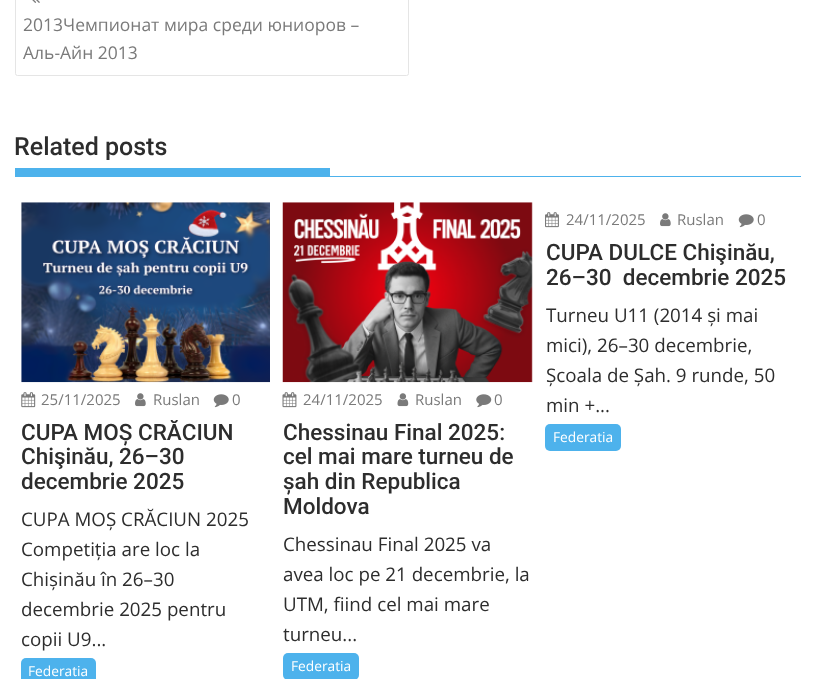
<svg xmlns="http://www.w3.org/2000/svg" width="816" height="679">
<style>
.a{font:17.5px Open Sans;fill:#7a7a7a}
.b{font:500 25px Roboto;fill:#2d2d2d}
.c{font:15px Open Sans;fill:#7a7a7a}
.d{font:500 22.5px Roboto;fill:#2d2d2d}
.e{font:18.75px Open Sans;fill:#2d2d2d}
.f{font:13.75px Open Sans;fill:#fff}
</style>
<rect width="100%" height="100%" fill="#fff"/>
<rect fill="none" stroke="#e5e5e5" x="15.5" y="-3.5" width="393" height="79" rx="2"/>
<image href="1.png" x="32" y="0" width="8" height="3"/>
<path fill="#4db2ec" d="M15 176h786v1H15z"/>
<path fill="#4db2ec" d="M15 168h315v8H15z"/>
<image href="2.png" x="545" y="212" width="14" height="16"/>
<image href="3.png" x="660" y="213" width="11" height="14"/>
<image href="4.png" x="738" y="214" width="16" height="14"/>
<rect fill="#4db2ec" x="545" y="424" width="76" height="27" rx="5"/>
<image href="5.png" x="21" y="202" width="249" height="181"/>
<image href="6.png" x="21" y="392" width="15" height="16"/>
<image href="3.png" x="135" y="393" width="11" height="14"/>
<image href="4.png" x="213" y="394" width="16" height="14"/>
<rect fill="#4db2ec" x="21" y="658" width="75" height="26" rx="5"/>
<image href="7.png" x="282" y="202" width="251" height="181"/>
<image href="8.png" x="282" y="392" width="15" height="16"/>
<image href="9.png" x="397" y="393" width="12" height="14"/>
<image href="10.png" x="476" y="394" width="16" height="14"/>
<rect fill="#4db2ec" x="283" y="653" width="76" height="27" rx="5"/>
<text class="a" x="23" y="31">2013Чемпионат мира среди юниоров –</text>
<text class="a" x="23" y="59">Аль-Айн 2013</text>
<text class="b" x="14" y="155">Related posts</text>
<text class="c" x="566" y="225">24/11/2025</text>
<text class="c" x="677" y="225">Ruslan</text>
<text class="c" x="757" y="225">0</text>
<text class="d" x="546" y="260">CUPA DULCE Chişinău,</text>
<text class="d" xml:space="preserve" x="546" y="285">26–30  decembrie 2025</text>
<text class="e" x="546" y="322">Turneu U11 (2014 și mai</text>
<text class="e" x="546" y="352">mici), 26–30 decembrie,</text>
<text class="e" x="546" y="382">Școala de Șah. 9 runde, 50</text>
<text class="e" x="546" y="412">min +...</text>
<text class="f" x="553" y="442">Federatia</text>
<text class="c" x="41" y="405">25/11/2025</text>
<text class="c" x="153" y="405">Ruslan</text>
<text class="c" x="232" y="405">0</text>
<text class="d" x="21" y="440">CUPA MOȘ CRĂCIUN</text>
<text class="d" x="21" y="464">Chişinău, 26–30</text>
<text class="d" x="21" y="489">decembrie 2025</text>
<text class="e" x="21" y="526">CUPA MOȘ CRĂCIUN 2025</text>
<text class="e" x="21" y="556">Competiția are loc la</text>
<text class="e" x="21" y="586">Chișinău în 26–30</text>
<text class="e" x="21" y="616">decembrie 2025 pentru</text>
<text class="e" x="21" y="646">copii U9...</text>
<text class="f" x="28" y="676">Federatia</text>
<text class="c" x="303" y="405">24/11/2025</text>
<text class="c" x="415" y="405">Ruslan</text>
<text class="c" x="494" y="405">0</text>
<text class="d" x="283" y="440">Chessinau Final 2025:</text>
<text class="d" x="283" y="464">cel mai mare turneu de</text>
<text class="d" x="283" y="489">șah din Republica</text>
<text class="d" x="283" y="514">Moldova</text>
<text class="e" x="283" y="551">Chessinau Final 2025 va</text>
<text class="e" x="283" y="581">avea loc pe 21 decembrie, la</text>
<text class="e" x="283" y="611">UTM, fiind cel mai mare</text>
<text class="e" x="283" y="641">turneu...</text>
<text class="f" x="291" y="671">Federatia</text>
</svg>
